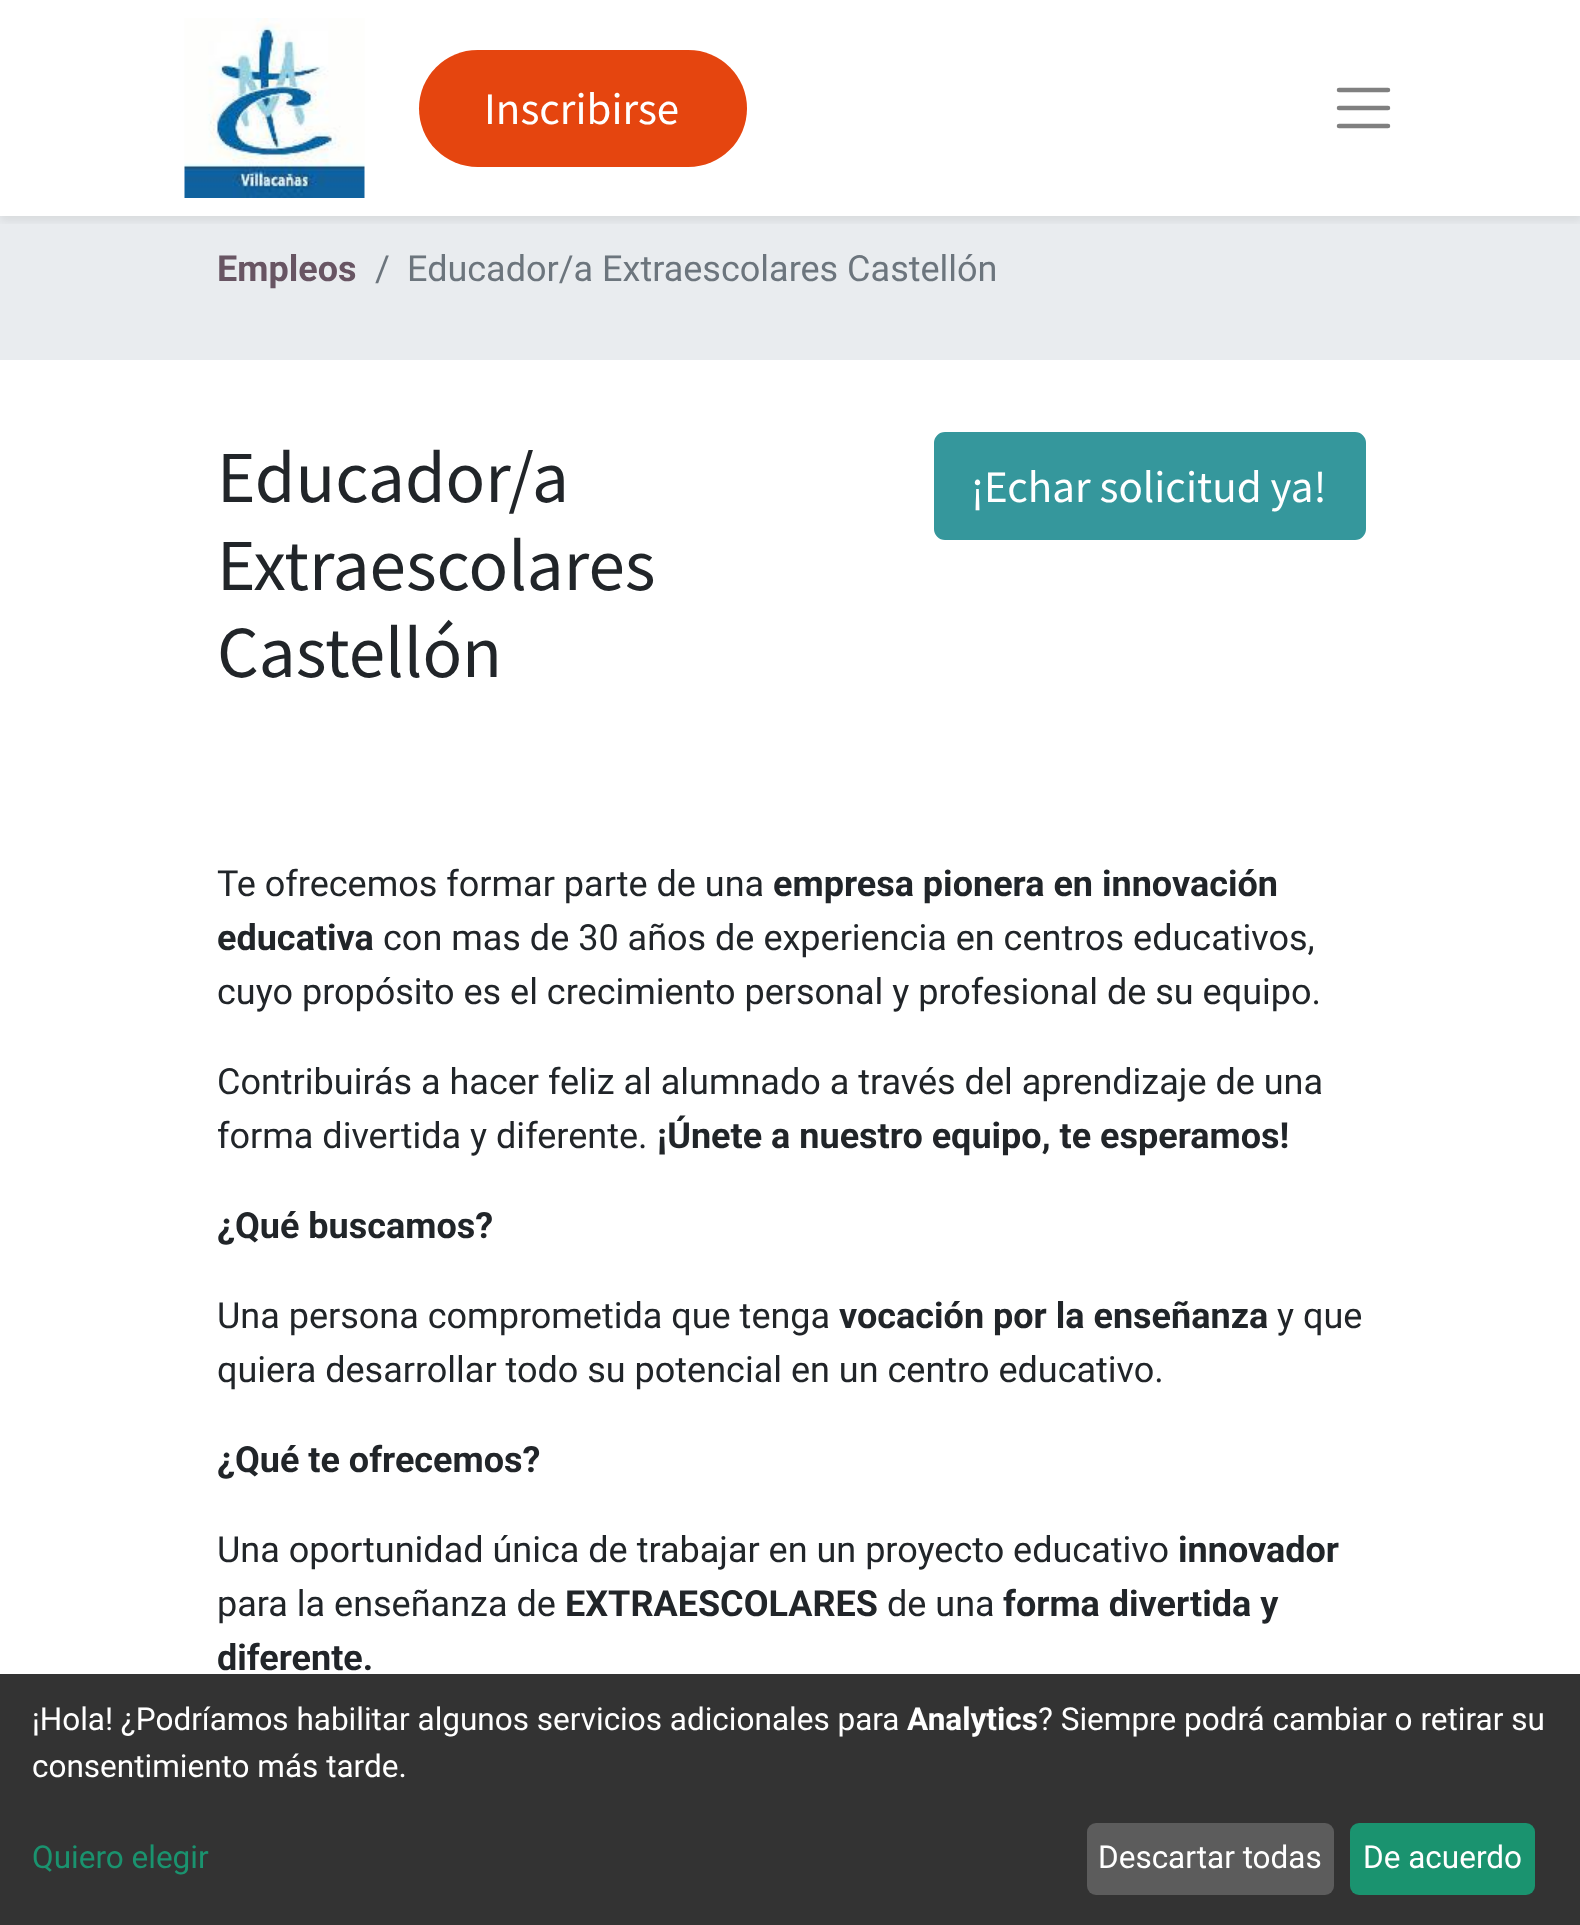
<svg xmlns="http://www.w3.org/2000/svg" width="1580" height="1925">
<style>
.a{font:45px Source Sans Pro;fill:#fff}
.b{font:bold 36px Roboto;fill:#685563}
.c{font:36px Roboto;fill:#6c757d}
.d{font:73.25px Source Sans Pro;fill:#212529}
.e{font:36px Roboto;fill:#212529}
.f{font:bold 36px Roboto;fill:#212529}
.g{font:31.5px Roboto;fill:#fff}
.h{font:bold 31.5px Roboto;fill:#fff}
.i{font:31.5px Roboto;fill:#1a936f}
</style>
<defs>
<clipPath id="clip1"><path d="M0 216h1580v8H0z"/></clipPath>
</defs>
<rect width="100%" height="100%" fill="#fff"/>
<path fill="#e9ecef" d="M0 216h1580v144H0z"/>
<g clip-path="url(#clip1)">
<path fill="#00000012" filter="blur(4.5px)" d="M0 5h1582v216H0z"/>
</g>
<image href="1.png" x="184" y="18" width="181" height="180"/>
<rect fill="#e5450f" x="419" y="50" width="328" height="117" rx="58.5"/>
<path fill="none" stroke="#808080" stroke-width="4.5" stroke-linecap="round" d="M1339 90h49m-49 18h49m-49 18h49"/>
<rect fill="#35979c" stroke="#35979c" stroke-width="2" x="935" y="433" width="430" height="106" rx="10"/>
<path fill="#333" d="M0 1674h1580v251H0z"/>
<rect fill="#5c5c5c" x="1087" y="1823" width="247" height="72" rx="9"/>
<rect fill="#1a936f" x="1350" y="1823" width="185" height="72" rx="9"/>
<text class="a" x="484" y="124">Inscribirse</text>
<text class="b" x="217" y="281">Empleos</text>
<text class="c" x="375" y="281">/</text>
<text class="c" x="407" y="281">Educador/a Extraescolares Castellón</text>
<text class="d" x="217" y="502">Educador/a</text>
<text class="d" x="217" y="590">Extraescolares</text>
<text class="d" x="217" y="677">Castellón</text>
<text class="a" x="971" y="502">¡Echar solicitud ya!</text>
<text class="e" x="217" y="896">Te ofrecemos formar parte de una</text>
<text class="f" x="773" y="896">empresa pionera en innovación</text>
<text class="f" x="217" y="950">educativa</text>
<text class="e" x="383" y="950">con mas de 30 años de experiencia en centros educativos,</text>
<text class="e" x="217" y="1004">cuyo propósito es el crecimiento personal y profesional de su equipo.</text>
<text class="e" x="217" y="1094">Contribuirás a hacer feliz al alumnado a través del aprendizaje de una</text>
<text class="e" x="217" y="1148">forma divertida y diferente.</text>
<text class="f" x="657" y="1148">¡Únete a nuestro equipo, te esperamos!</text>
<text class="f" x="217" y="1238">¿Qué buscamos?</text>
<text class="e" x="217" y="1328">Una persona comprometida que tenga</text>
<text class="f" x="839" y="1328">vocación por la enseñanza</text>
<text class="e" x="1277" y="1328">y que</text>
<text class="e" x="217" y="1382">quiera desarrollar todo su potencial en un centro educativo.</text>
<text class="f" x="217" y="1472">¿Qué te ofrecemos?</text>
<text class="e" x="217" y="1562">Una oportunidad única de trabajar en un proyecto educativo</text>
<text class="f" x="1178" y="1562">innovador</text>
<text class="e" x="217" y="1616">para la enseñanza de</text>
<text class="f" x="565" y="1616">EXTRAESCOLARES</text>
<text class="e" x="887" y="1616">de una</text>
<text class="f" x="1003" y="1616">forma divertida y</text>
<text class="f" x="217" y="1670">diferente.</text>
<text class="g" x="32" y="1730">¡Hola! ¿Podríamos habilitar algunos servicios adicionales para</text>
<text class="h" x="907" y="1730">Analytics</text>
<text class="g" x="1038" y="1730">? Siempre podrá cambiar o retirar su</text>
<text class="g" x="32" y="1777">consentimiento más tarde.</text>
<text class="i" x="32" y="1868">Quiero elegir</text>
<text class="g" x="1098" y="1868">Descartar todas</text>
<text class="g" x="1363" y="1868">De acuerdo</text>
</svg>
